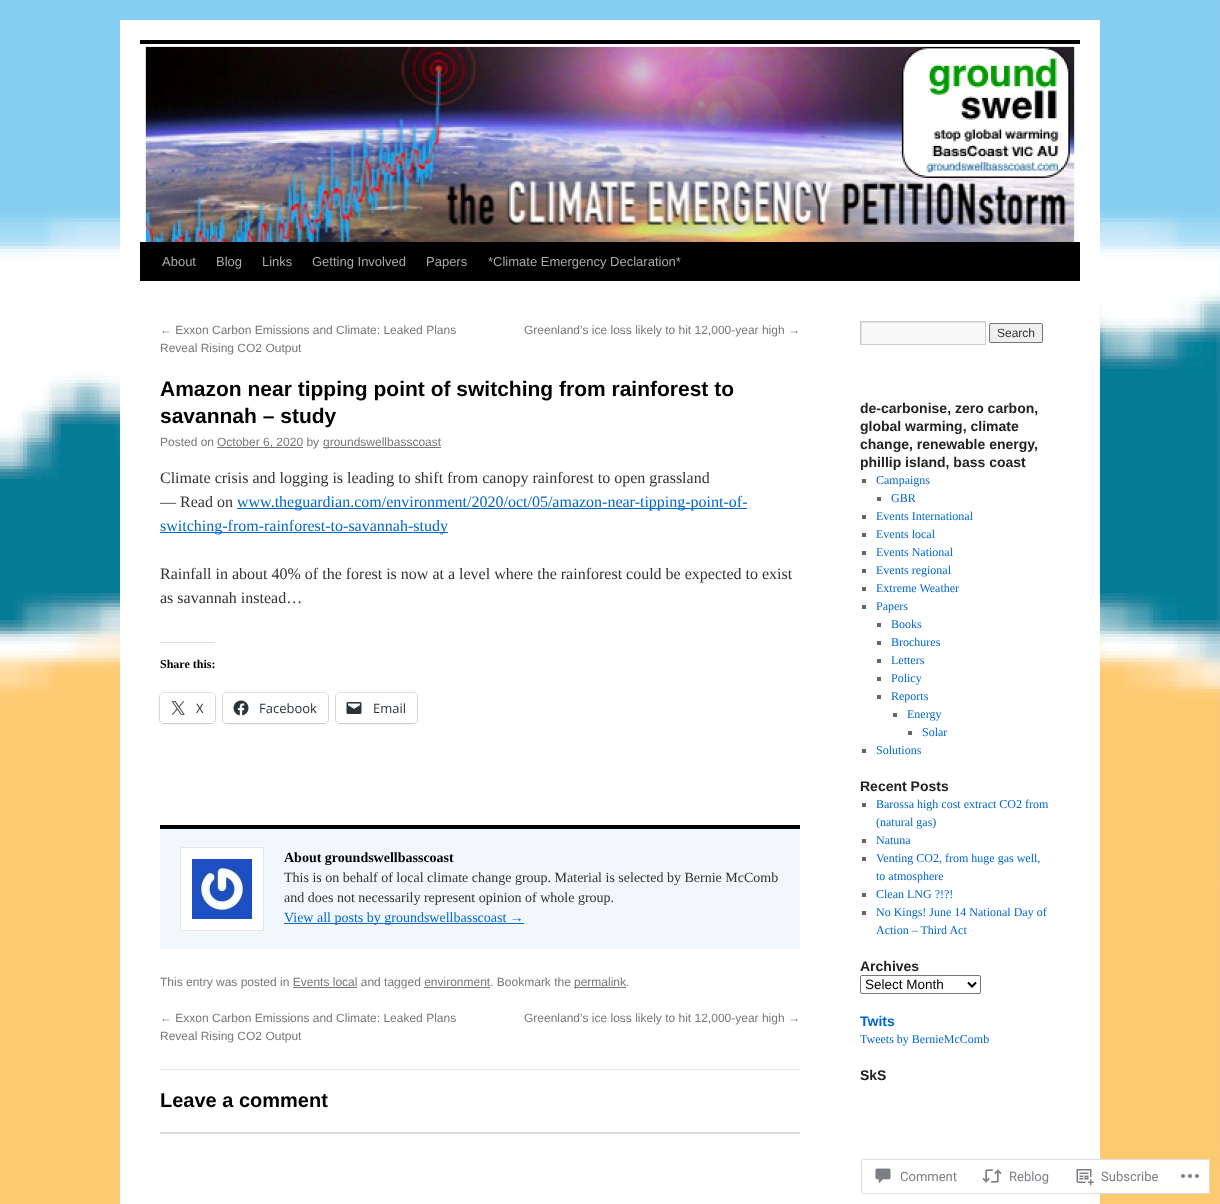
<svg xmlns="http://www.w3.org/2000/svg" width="1220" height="1204">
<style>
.a{font:13px Liberation Sans;fill:#aaa}
.b{font:12px Liberation Sans;fill:#777}
.c{font:bold 21px Liberation Sans;fill:#000}
.d{font:16px Liberation Serif;fill:#333}
.e{font:16px Liberation Serif;fill:#06c}
.f{font:bold 12px Liberation Serif;fill:#000}
.g{font:13px Open Sans;fill:#2c3338}
.h{font:bold 14px Liberation Serif;fill:#000}
.i{font:14px Liberation Serif;fill:#333}
.j{font:14px Liberation Serif;fill:#06c}
.k{font:bold 20px Liberation Sans;fill:#000}
.l{font:12px Liberation Sans;fill:#333}
.m{font:bold 14px Liberation Sans;fill:#222}
.n{font:12px Liberation Serif;fill:#06c}
.o{font:13.5px Liberation Sans;fill:#000}
.p{font:bold 14px Liberation Sans;fill:#06c}
.q{font:13px Roboto;fill:#7b7f85}
</style>
<defs>
<clipPath id="clip1"><path d="M861 322h124v22H861z"/></clipPath>
</defs>
<rect width="100%" height="100%" fill="#fff"/>
<image href="1.png" x="0" y="0" width="1220" height="1204"/>
<path fill="#fff" d="M120 20h980v1184H120z"/>
<path fill="#000" d="M140 40h940v4H140z"/>
<path fill="#000" d="M140 242h940v39H140z"/>
<image href="2.png" x="145" y="46" width="930" height="196"/>
<path fill="#777" d="M217 447h86v1H217z"/>
<path fill="#777" d="M323 447h118v1H323z"/>
<path fill="#06c" d="M237 508h510v1H237z"/>
<path fill="#06c" d="M160 532h288v1H160z"/>
<path fill="#dcdcde" d="M160 642h55v1H160z"/>
<rect fill="none" stroke="#e0e0e0" x="159.5" y="692.5" width="56" height="31" rx="4.5"/>
<rect fill="#0000001f" filter="blur(1px)" x="160" y="694" width="55" height="30" rx="4"/>
<rect fill="#fff" x="160" y="693" width="55" height="30" rx="4"/>
<image href="3.png" x="171" y="701" width="14" height="14"/>
<rect fill="none" stroke="#e0e0e0" x="222.5" y="692.5" width="106" height="31" rx="4.5"/>
<rect fill="#0000001f" filter="blur(1px)" x="223" y="694" width="105" height="30" rx="4"/>
<rect fill="#fff" x="223" y="693" width="105" height="30" rx="4"/>
<image href="4.png" x="233" y="700" width="16" height="16"/>
<rect fill="none" stroke="#e0e0e0" x="335.5" y="692.5" width="82" height="31" rx="4.5"/>
<rect fill="#0000001f" filter="blur(1px)" x="336" y="694" width="81" height="30" rx="4"/>
<rect fill="#fff" x="336" y="693" width="81" height="30" rx="4"/>
<image href="5.png" x="346" y="702" width="16" height="12"/>
<path fill="#f2f7fc" d="M160 829h640v120H160z"/>
<path fill="#000" d="M160 825h640v4H160z"/>
<path fill="#fff" stroke="#e7e7e7" d="M180.5 847.5h83v83H180.5z"/>
<image href="6.png" x="192" y="859" width="60" height="60"/>
<path fill="#06c" d="M284 923h240v1H284z"/>
<path fill="#777" d="M574 987h52v1H574z"/>
<path fill="#777" d="M293 987h64v1H293z"/>
<path fill="#777" d="M424 987h66v1H424z"/>
<path fill="#e7e7e7" d="M160 1069h640v1H160z"/>
<path fill="#dcdcde" d="M160 1132h640v2H160z"/>
<path fill="#f9f9f9" d="M862 323h123v21H862z"/>
<g clip-path="url(#clip1)">
<path fill="#e0e0e0" fill-rule="evenodd" d="M762 223h322v220h-322zm100 100h124v22h-124z"/>
</g>
<path fill="none" stroke="#ccc" d="M860.5 321.5h125v23H860.5z"/>
<rect fill="#efefef" stroke="#767676" x="989.5" y="323.5" width="53" height="19" rx="1.5"/>
<path fill="#666" d="M862 479h4v4H862z"/>
<path fill="#666" d="M877 497h4v4H877z"/>
<path fill="#666" d="M862 515h4v4H862z"/>
<path fill="#666" d="M862 533h4v4H862z"/>
<path fill="#666" d="M862 551h4v4H862z"/>
<path fill="#666" d="M862 569h4v4H862z"/>
<path fill="#666" d="M862 587h4v4H862z"/>
<path fill="#666" d="M862 605h4v4H862z"/>
<path fill="#666" d="M877 623h4v4H877z"/>
<path fill="#666" d="M877 641h4v4H877z"/>
<path fill="#666" d="M877 659h4v4H877z"/>
<path fill="#666" d="M877 677h4v4H877z"/>
<path fill="#666" d="M877 695h4v4H877z"/>
<path fill="#666" d="M893 713h4v4H893z"/>
<path fill="#666" d="M908 731h4v4H908z"/>
<path fill="#666" d="M862 749h4v4H862z"/>
<path fill="#666" d="M862 803h4v4H862z"/>
<path fill="#666" d="M862 839h4v4H862z"/>
<path fill="#666" d="M862 857h4v4H862z"/>
<path fill="#666" d="M862 893h4v4H862z"/>
<path fill="#666" d="M862 911h4v4H862z"/>
<rect fill="none" stroke="#767676" x="860.5" y="975.5" width="120" height="18" rx="1.5"/>
<path fill="none" stroke="#000" stroke-width="2" d="M968 982.5l4 4l4-4"/>
<rect fill="#fffffffa" x="861" y="1159" width="349" height="35" rx="3"/>
<rect fill="none" stroke="#dcdcdefa" x="861.5" y="1159.5" width="348" height="34" rx="2.5"/>
<image href="7.png" x="875" y="1168" width="16" height="16"/>
<image href="8.png" x="982" y="1169" width="20" height="14"/>
<image href="9.png" x="1076" y="1169" width="18" height="17"/>
<image href="10.png" x="1181" y="1174" width="18" height="4"/>
<text class="a" x="162" y="266">About</text>
<text class="a" x="216" y="266">Blog</text>
<text class="a" x="262" y="266">Links</text>
<text class="a" x="312" y="266">Getting Involved</text>
<text class="a" x="426" y="266">Papers</text>
<text class="a" x="488" y="266">*Climate Emergency Declaration*</text>
<text class="b" x="160" y="334">← Exxon Carbon Emissions and Climate: Leaked Plans</text>
<text class="b" x="160" y="352">Reveal Rising CO2 Output</text>
<text class="b" x="524" y="334">Greenland’s ice loss likely to hit 12,000-year high →</text>
<text class="c" x="160" y="396">Amazon near tipping point of switching from rainforest to</text>
<text class="c" x="160" y="423">savannah – study</text>
<text class="b" x="160" y="446">Posted on</text>
<text class="b" x="217" y="446">October 6, 2020 by</text>
<text class="b" x="323" y="446">groundswellbasscoast</text>
<text class="d" x="160" y="483">Climate crisis and logging is leading to shift from canopy rainforest to open grassland</text>
<text class="d" x="160" y="507">— Read on</text>
<text class="e" x="237" y="507">www.theguardian.com/environment/2020/oct/05/amazon-near-tipping-point-of-</text>
<text class="e" x="160" y="531">switching-from-rainforest-to-savannah-study</text>
<text class="d" x="160" y="579">Rainfall in about 40% of the forest is now at a level where the rainforest could be expected to exist</text>
<text class="d" x="160" y="603">as savannah instead…</text>
<text class="f" x="160" y="668">Share this:</text>
<text class="g" x="196" y="713">X</text>
<text class="g" x="259" y="713">Facebook</text>
<text class="g" x="373" y="713">Email</text>
<text class="h" x="284" y="862">About groundswellbasscoast</text>
<text class="i" x="284" y="882">This is on behalf of local climate change group. Material is selected by Bernie McComb</text>
<text class="i" x="284" y="902">and does not necessarily represent opinion of whole group.</text>
<text class="j" x="284" y="922">View all posts by groundswellbasscoast →</text>
<text class="b" x="160" y="986">This entry was posted in Events local and tagged environment. Bookmark the</text>
<text class="b" x="574" y="986">permalink.</text>
<text class="b" x="160" y="1022">← Exxon Carbon Emissions and Climate: Leaked Plans</text>
<text class="b" x="160" y="1040">Reveal Rising CO2 Output</text>
<text class="b" x="524" y="1022">Greenland’s ice loss likely to hit 12,000-year high →</text>
<text class="k" x="160" y="1107">Leave a comment</text>
<text class="l" x="997" y="337">Search</text>
<text class="m" x="860" y="413">de-carbonise, zero carbon,</text>
<text class="m" x="860" y="431">global warming, climate</text>
<text class="m" x="860" y="449">change, renewable energy,</text>
<text class="m" x="860" y="467">phillip island, bass coast</text>
<text class="n" x="876" y="484">Campaigns</text>
<text class="n" x="891" y="502">GBR</text>
<text class="n" x="876" y="520">Events International</text>
<text class="n" x="876" y="538">Events local</text>
<text class="n" x="876" y="556">Events National</text>
<text class="n" x="876" y="574">Events regional</text>
<text class="n" x="876" y="592">Extreme Weather</text>
<text class="n" x="876" y="610">Papers</text>
<text class="n" x="891" y="628">Books</text>
<text class="n" x="891" y="646">Brochures</text>
<text class="n" x="891" y="664">Letters</text>
<text class="n" x="891" y="682">Policy</text>
<text class="n" x="891" y="700">Reports</text>
<text class="n" x="907" y="718">Energy</text>
<text class="n" x="922" y="736">Solar</text>
<text class="n" x="876" y="754">Solutions</text>
<text class="m" x="860" y="791">Recent Posts</text>
<text class="n" x="876" y="808">Barossa high cost extract CO2 from</text>
<text class="n" x="876" y="826">(natural gas)</text>
<text class="n" x="876" y="844">Natuna</text>
<text class="n" x="876" y="862">Venting CO2, from huge gas well,</text>
<text class="n" x="876" y="880">to atmosphere</text>
<text class="n" x="876" y="898">Clean LNG ?!?!</text>
<text class="n" x="876" y="916">No Kings! June 14 National Day of</text>
<text class="n" x="876" y="934">Action – Third Act</text>
<text class="m" x="860" y="971">Archives</text>
<text class="o" x="865" y="989">Select Month</text>
<text class="p" x="860" y="1026">Twits</text>
<text class="n" x="860" y="1043">Tweets by BernieMcComb</text>
<text class="m" x="860" y="1080">SkS</text>
<text class="q" x="900" y="1181">Comment</text>
<text class="q" x="1009" y="1181">Reblog</text>
<text class="q" x="1101" y="1181">Subscribe</text>
</svg>
